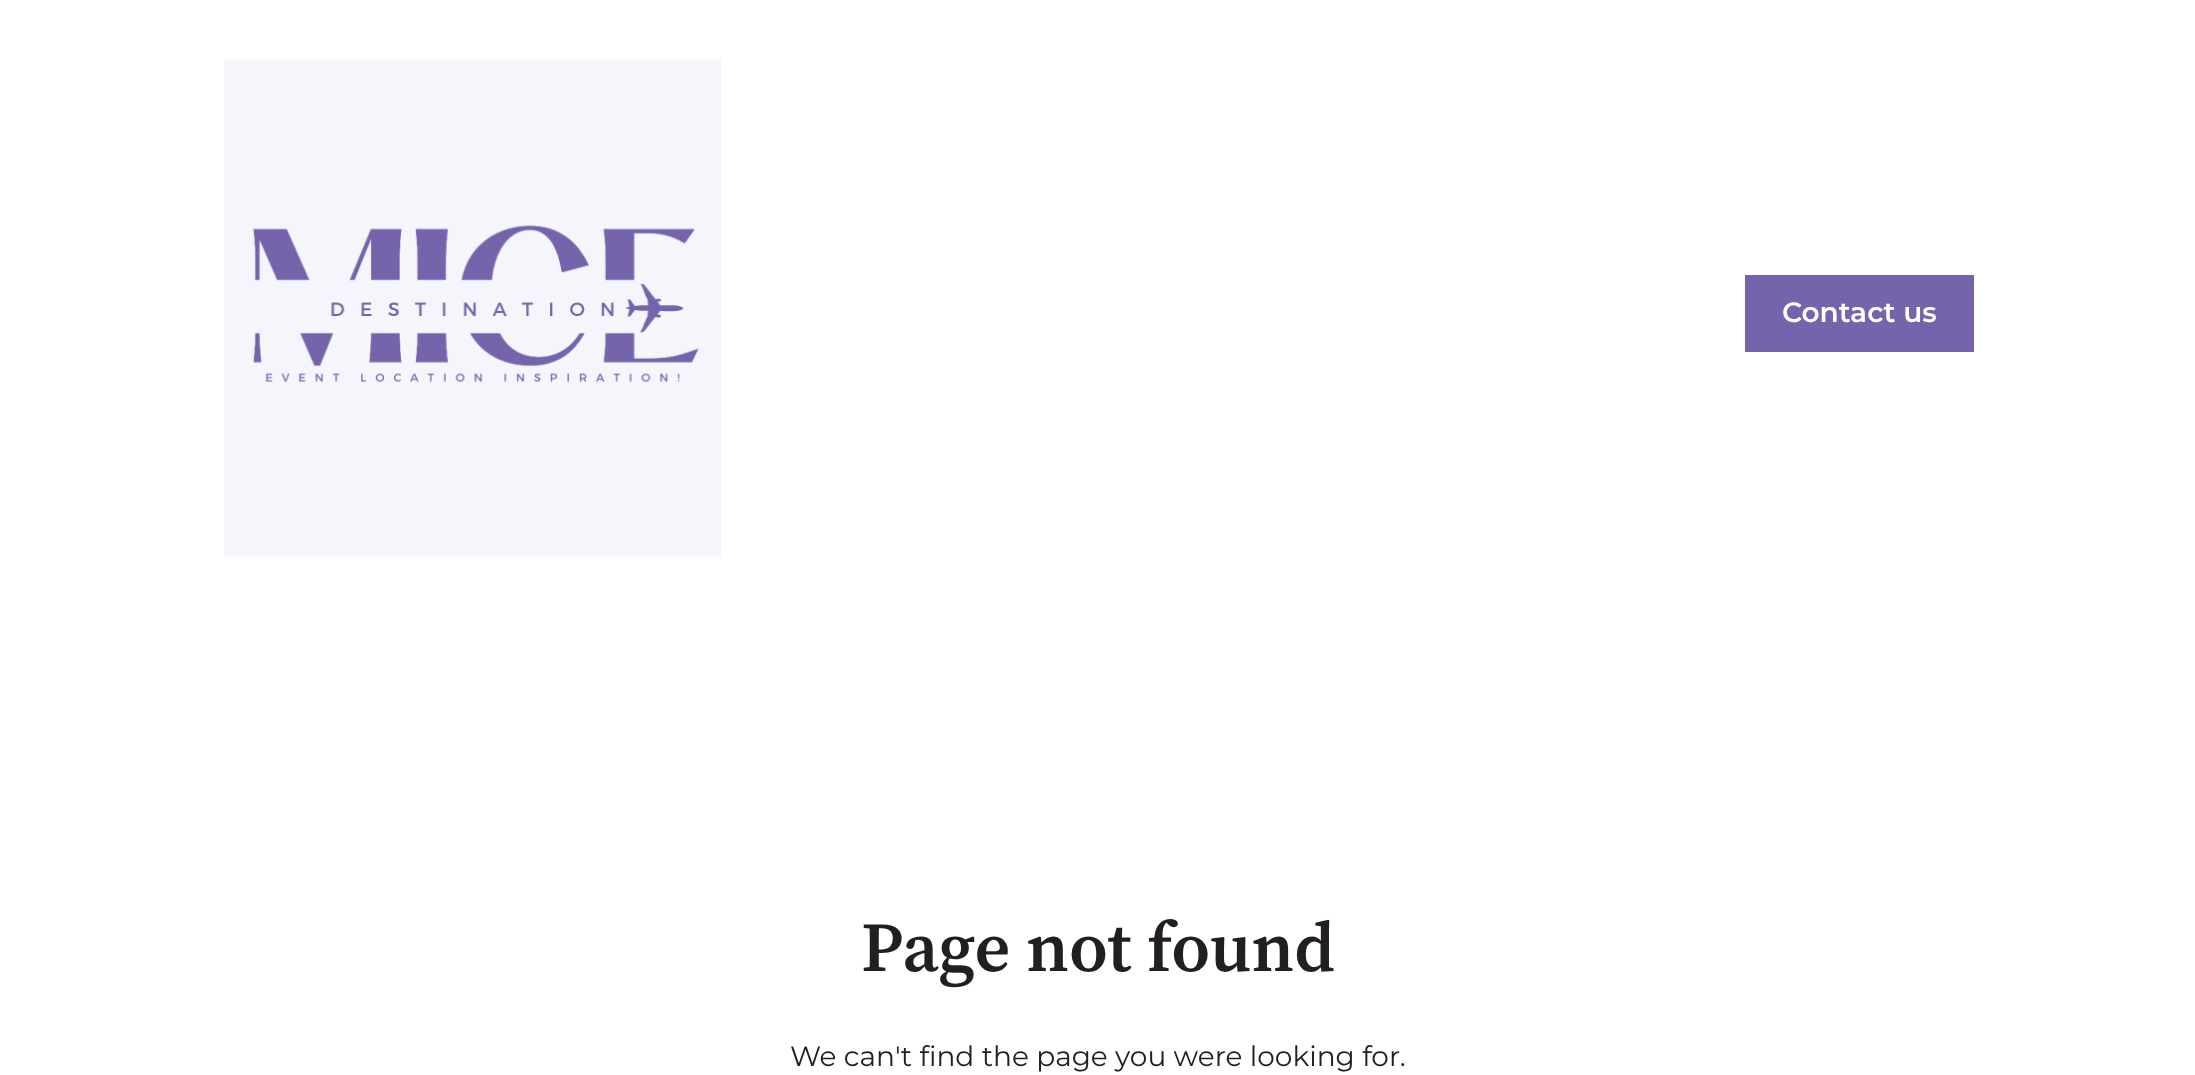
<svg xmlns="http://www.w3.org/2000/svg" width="2195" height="1075">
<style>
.a{font:600 28px Montserrat;fill:#fff}
.b{font:600 70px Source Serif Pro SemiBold;fill:#231f20}
.c{font:28px Montserrat;fill:#231f20}
</style>
<rect width="100%" height="100%" fill="#fff"/>
<image href="1.png" x="224" y="59" width="497" height="498"/>
<path fill="#7564ab" d="M1745 275h229v77H1745z"/>
<text class="a" x="1782" y="322">Contact us</text>
<text class="b" x="861" y="971">Page not found</text>
<text class="c" x="790" y="1066">We can't find the page you were looking for.</text>
</svg>
